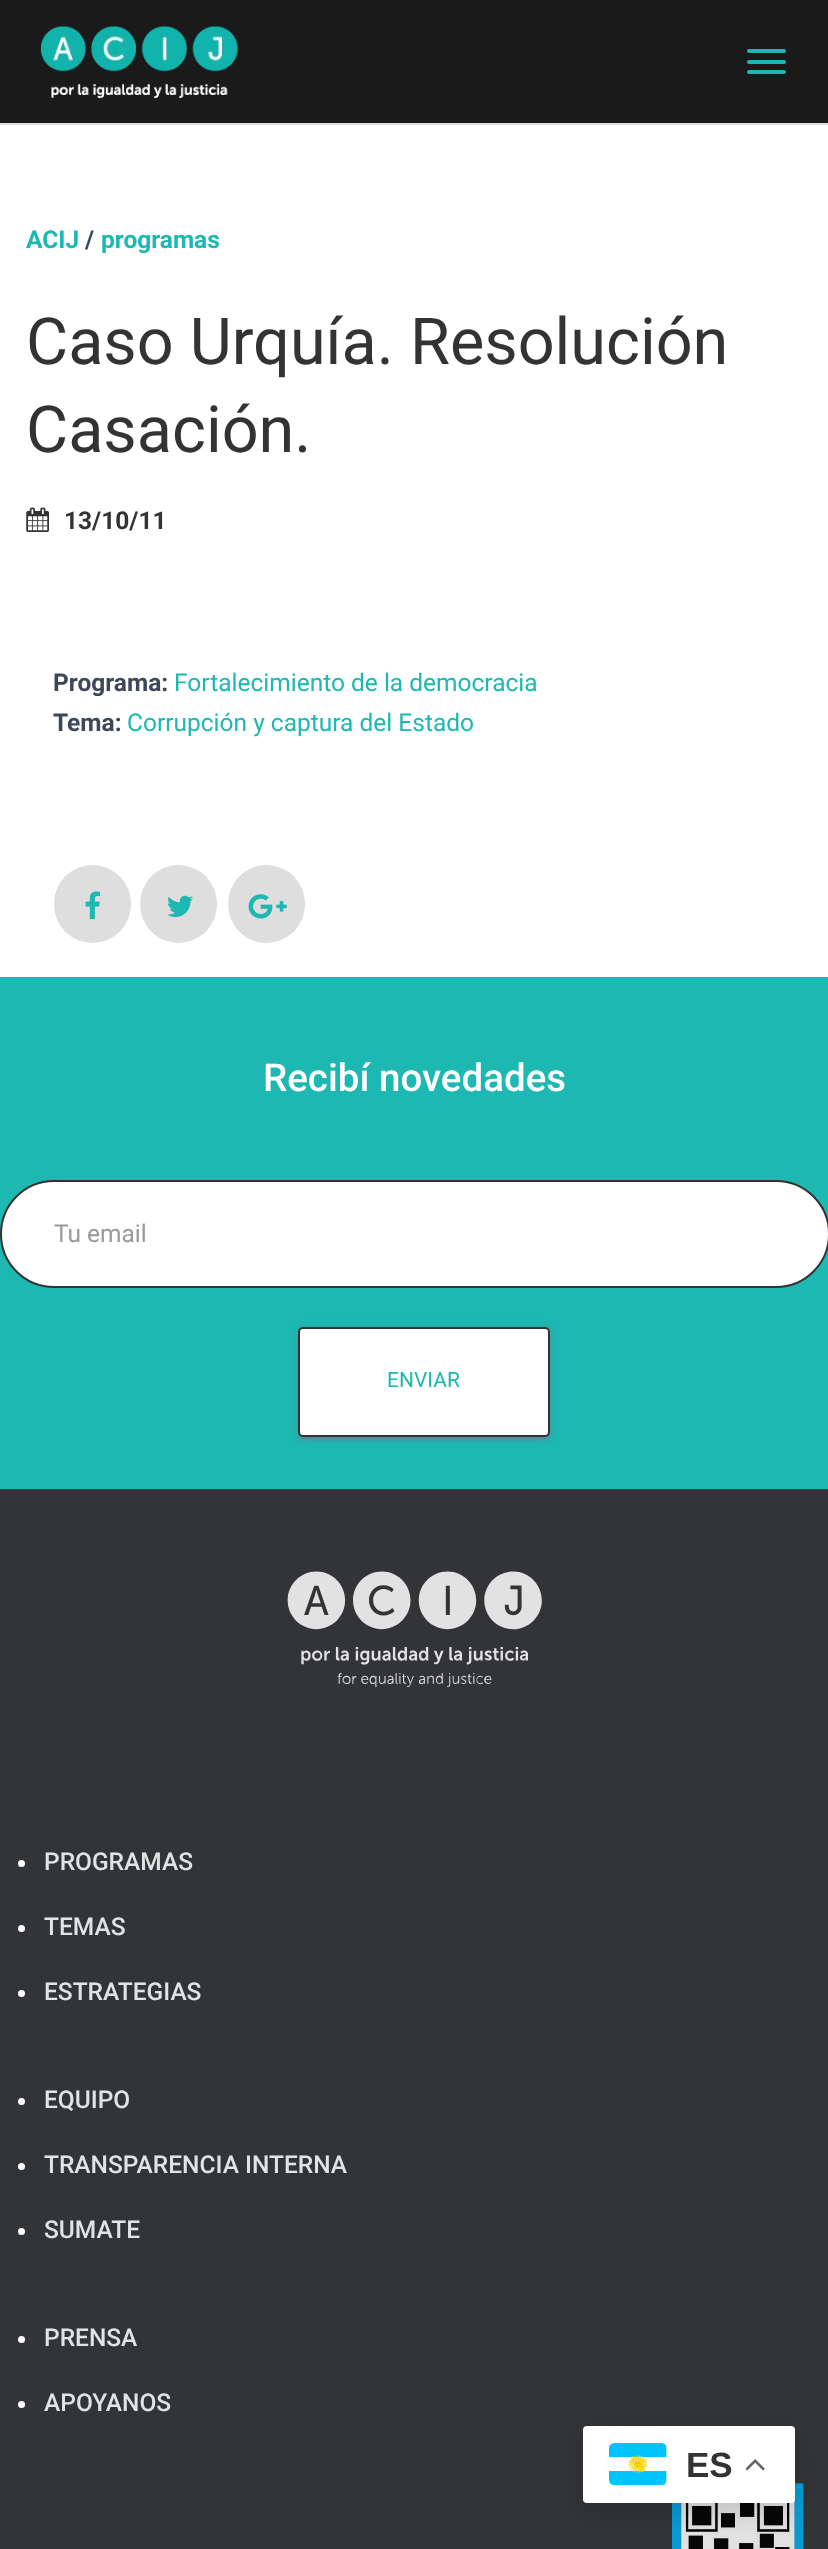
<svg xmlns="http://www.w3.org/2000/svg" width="828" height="2549">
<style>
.a{font:bold 24.5px Roboto;fill:#1db8b1}
.b{font:bold 24.5px Roboto;fill:#3c4858}
.c{font:64.75px Roboto;fill:#333}
.d{font:bold 24.5px Roboto;fill:#333}
.e{font:24.5px Roboto;fill:#1db8b1}
.f{font:500 38.5px Roboto;fill:#fff}
.g{font:24.5px Roboto;fill:#999}
.h{font:21px Roboto;fill:#1db8b1}
.i{font:500 24.5px Roboto;fill:#e2e3e3}
.j{font:bold 35px Liberation Sans;fill:#333}
</style>
<rect width="100%" height="100%" fill="#fff"/>
<path fill="#ddd" d="M0 123h828v2H0z"/>
<path fill="#1a1a1a" d="M0 0h828v123H0z"/>
<image href="1.png" x="40" y="25" width="199" height="74"/>
<rect fill="#1db8b1" x="747" y="49" width="39" height="4" rx="2"/>
<rect fill="#1db8b1" x="747" y="60" width="39" height="4" rx="2"/>
<rect fill="#1db8b1" x="747" y="70" width="39" height="4" rx="2"/>
<image href="2.png" x="26" y="507" width="23" height="25"/>
<rect fill="#dedede" x="54" y="865" width="77" height="78" rx="38.5"/>
<image href="3.png" x="85" y="891" width="15" height="29"/>
<rect fill="#dedede" x="140" y="865" width="77" height="78" rx="38.5"/>
<image href="4.png" x="167" y="895" width="26" height="22"/>
<rect fill="#dedede" x="228" y="865" width="77" height="78" rx="38.5"/>
<image href="5.png" x="248" y="894" width="39" height="25"/>
<path fill="#1db8b1" d="M0 977h828v512H0z"/>
<rect fill="#fff" stroke="#333" stroke-width="2" x="1" y="1181" width="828" height="106" rx="53"/>
<rect fill="#e91e631f" filter="blur(4.5px)" x="298" y="1328" width="252" height="111" rx="5"/>
<rect fill="#e91e6333" filter="blur(1px)" x="301" y="1335" width="245" height="104" rx="2"/>
<rect fill="#e91e6324" filter="blur(2px)" x="298" y="1330" width="252" height="110" rx="5"/>
<rect fill="#fff" stroke="#333" stroke-width="2" x="299" y="1328" width="250" height="108" rx="4"/>
<path fill="#323437" d="M0 1489h828v1060H0z"/>
<image href="6.png" x="287" y="1571" width="255" height="116"/>
<circle fill="#fff" cx="21.5" cy="1863.5" r="3.5"/>
<circle fill="#fff" cx="21.5" cy="1928.5" r="3.5"/>
<circle fill="#fff" cx="21.5" cy="1993.5" r="3.5"/>
<circle fill="#fff" cx="21.5" cy="2101.5" r="3.5"/>
<circle fill="#fff" cx="21.5" cy="2166.5" r="3.5"/>
<circle fill="#fff" cx="21.5" cy="2231.5" r="3.5"/>
<circle fill="#fff" cx="21.5" cy="2339.5" r="3.5"/>
<circle fill="#fff" cx="21.5" cy="2404.5" r="3.5"/>
<image href="7.png" x="672" y="2483" width="132" height="66"/>
<rect fill="#00000026" filter="blur(13px)" x="583" y="2434" width="212" height="77" rx="4"/>
<rect fill="#fff" x="583" y="2426" width="212" height="77" rx="4"/>
<image href="8.png" x="609" y="2443" width="58" height="42"/>
<image href="9.png" x="746" y="2459" width="19" height="12"/>
<text class="a" x="26" y="248">ACIJ</text>
<text class="b" x="85" y="248">/</text>
<text class="a" x="101" y="248">programas</text>
<text class="c" x="26" y="364">Caso Urquía. Resolución</text>
<text class="c" x="26" y="452">Casación.</text>
<text class="d" x="64" y="529">13/10/11</text>
<text class="b" x="53" y="691">Programa:</text>
<text class="e" x="174" y="691">Fortalecimiento de la democracia</text>
<text class="b" x="53" y="731">Tema:</text>
<text class="e" x="127" y="731">Corrupción y captura del Estado</text>
<text class="f" x="263" y="1091">Recibí novedades</text>
<text class="g" x="54" y="1242">Tu email</text>
<text class="h" x="387" y="1387">ENVIAR</text>
<text class="i" x="44" y="1870">PROGRAMAS</text>
<text class="i" x="44" y="1935">TEMAS</text>
<text class="i" x="44" y="2000">ESTRATEGIAS</text>
<text class="i" x="44" y="2108">EQUIPO</text>
<text class="i" x="44" y="2173">TRANSPARENCIA INTERNA</text>
<text class="i" x="44" y="2238">SUMATE</text>
<text class="i" x="44" y="2346">PRENSA</text>
<text class="i" x="44" y="2411">APOYANOS</text>
<text class="j" x="686" y="2477">ES</text>
</svg>
